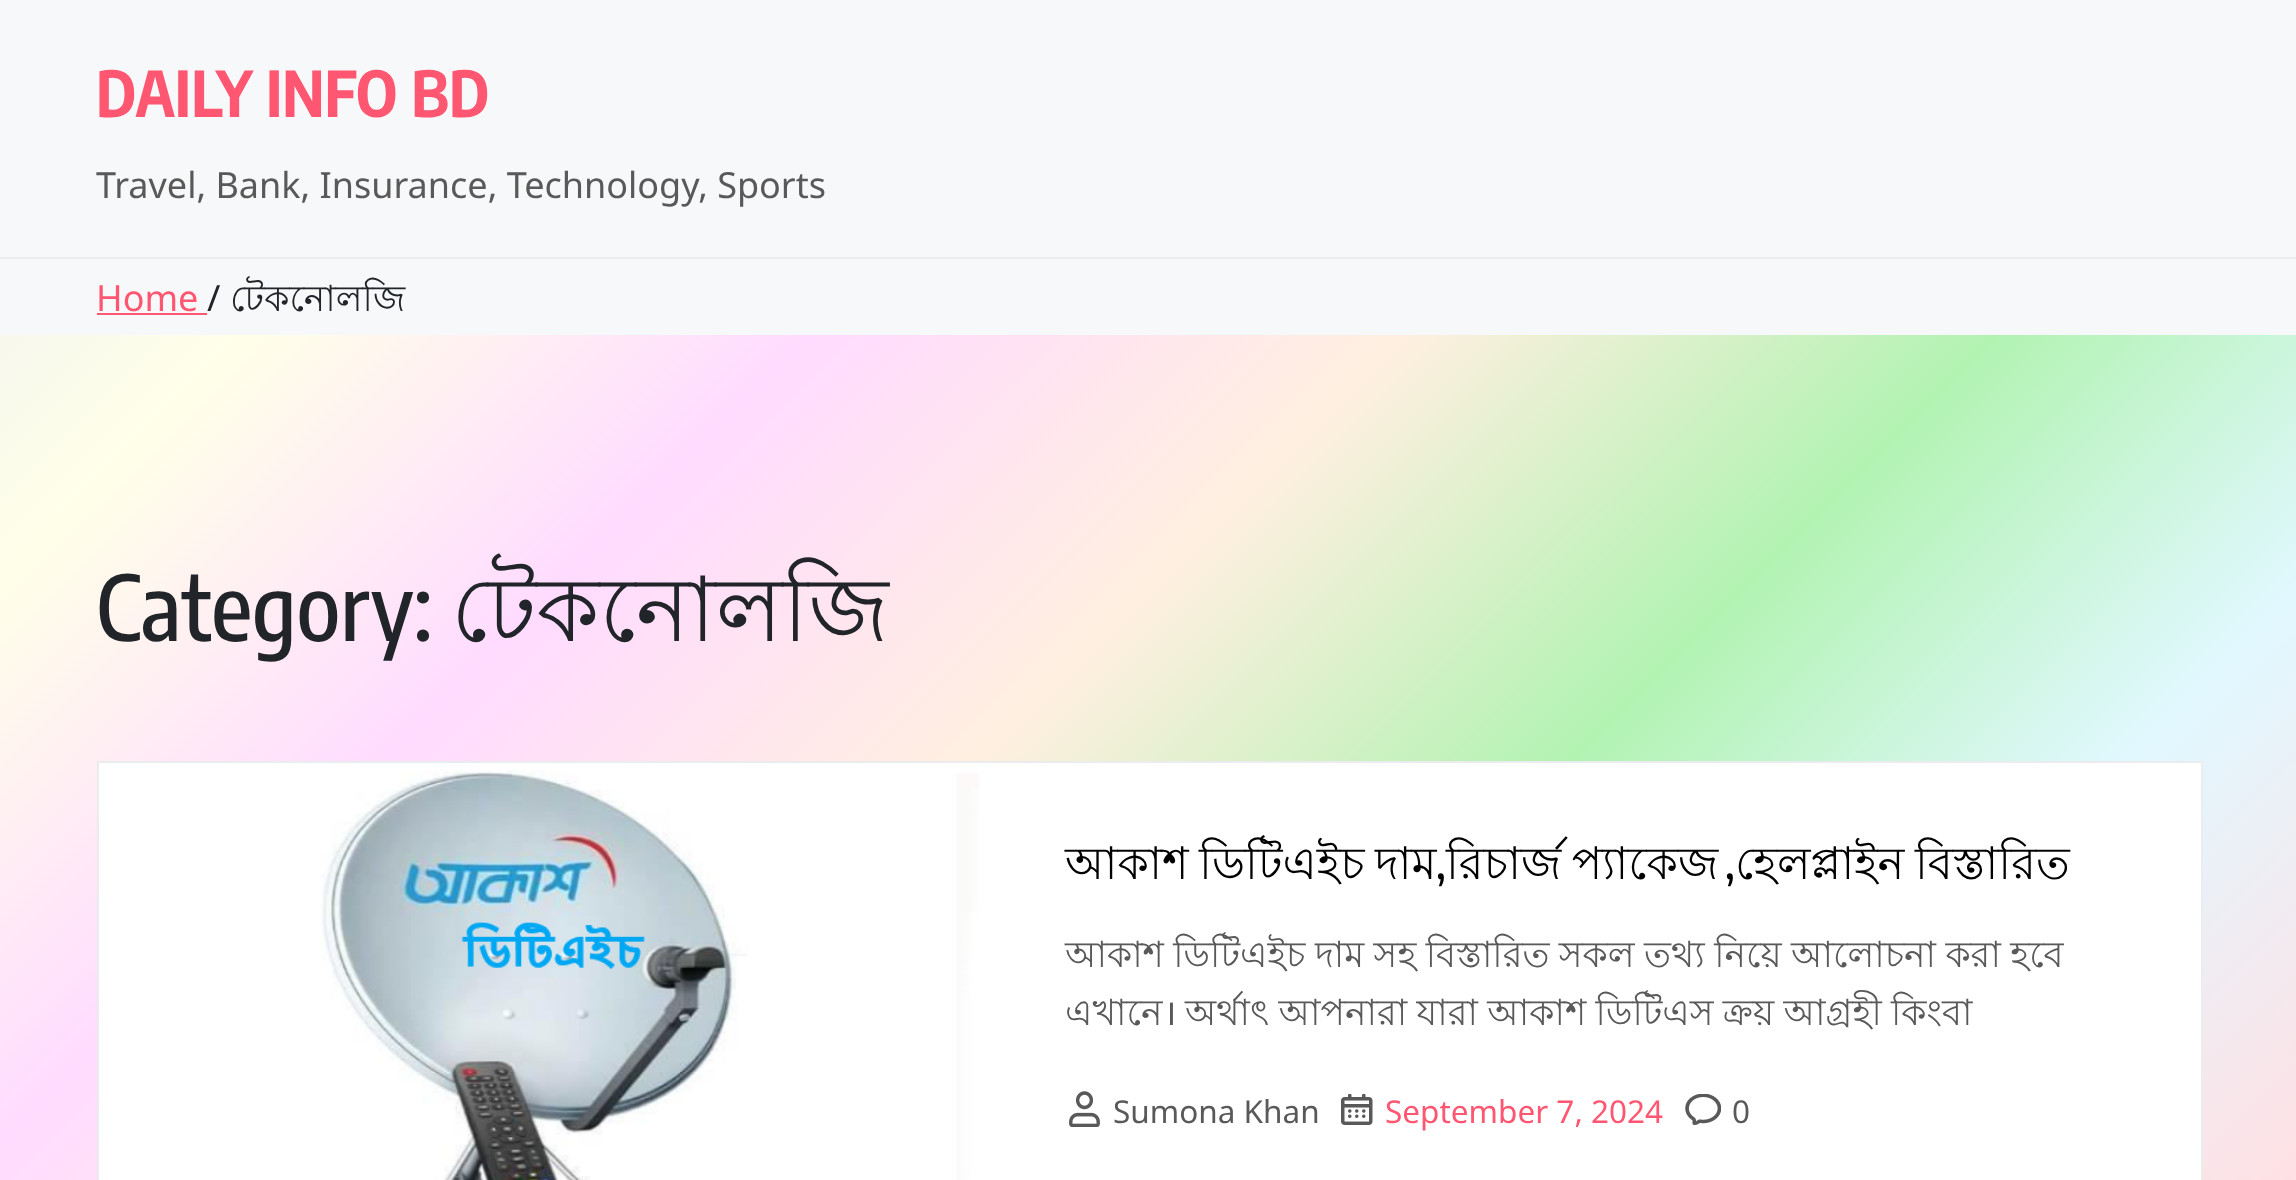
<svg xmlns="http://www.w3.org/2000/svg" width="2296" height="1180">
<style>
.a{font:bold 63px Encode Sans Condensed;fill:#ff5671}
.b{font:36px Noto Sans;fill:#595959}
.c{font:36px Noto Sans;fill:#ff5671}
.d{font:36px Noto Sans;fill:#212529}
.e{font:36px Lohit Bengali;fill:#212529}
.f{font:500 90px Encode Sans Condensed;fill:#212529}
.g{font:90px Lohit Bengali;fill:#212529}
.h{font:45px Lohit Bengali;fill:#000}
.i{font:500 45px Encode Sans Condensed;fill:#000}
.j{font:36px Lohit Bengali;fill:#595959}
.k{font:31.5px Noto Sans;fill:#595959}
.l{font:31.5px Noto Sans;fill:#ff5671}
</style>
<defs>
<linearGradient id="g1" gradientUnits="userSpaceOnUse" x1="2018" y1="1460" x2="279" y2="-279"><stop offset="0" stop-color="#ffe0e4"/><stop offset="0.17" stop-color="#e1f8ff"/><stop offset="0.33" stop-color="#b2f3b2"/><stop offset="0.5" stop-color="#ffefe0"/><stop offset="0.67" stop-color="#ffdbff"/><stop offset="0.83" stop-color="#ffffe9"/><stop offset="1" stop-color="#eeeef3"/></linearGradient>
</defs>
<rect width="100%" height="100%" fill="#fff"/>
<path fill="url(#g1)" d="M0 335h2296v845H0z"/>
<path fill="#f7f8f9" d="M0 0h2296v257H0z"/>
<path fill="#f7f8f9" d="M0 259h2296v76H0z"/>
<path fill="#eaecee" d="M0 257h2296v2H0z"/>
<path fill="#ff5671" d="M97 313h110v2H97z"/>
<path fill="#fff" stroke="#eaecee" stroke-width="2" d="M98 762h2104v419H98z"/>
<image href="1.png" x="320" y="770" width="659" height="410"/>
<image href="2.png" x="1069" y="1091" width="31" height="36"/>
<image href="3.png" x="1341" y="1094" width="32" height="31"/>
<image href="4.png" x="1685" y="1094" width="36" height="31"/>
<text class="a" x="96" y="117">DAILY INFO BD</text>
<text class="b" x="96" y="198">Travel, Bank, Insurance, Technology, Sports</text>
<text class="c" x="96" y="311">Home</text>
<text class="d" x="207" y="311">/</text>
<text class="e" x="230" y="311">টেকনোলজি</text>
<text class="f" x="96" y="641">Category:</text>
<text class="g" x="451" y="641">টেকনোলজি</text>
<text class="h" x="1065" y="879" word-spacing="-2">আকাশ ডিটিএইচ দাম</text>
<text class="i" x="1436" y="879">,</text>
<text class="h" x="1446" y="879" word-spacing="-2">রিচার্জ প্যাকেজ</text>
<text class="i" x="1725" y="879">,</text>
<text class="h" x="1735" y="879" word-spacing="-2">হেলপ্লাইন বিস্তারিত</text>
<text class="j" x="1065" y="967" word-spacing="-0.6">আকাশ ডিটিএইচ দাম সহ বিস্তারিত সকল তথ্য নিয়ে আলোচনা করা হবে</text>
<text class="j" x="1065" y="1025">এখানে</text>
<text class="b" x="1163" y="1025">।</text>
<text class="j" x="1185" y="1025" word-spacing="-0.6">অর্থাৎ আপনারা যারা আকাশ ডিটিএস ক্রয় আগ্রহী কিংবা</text>
<text class="k" x="1113" y="1123">Sumona Khan</text>
<text class="l" x="1385" y="1123">September 7, 2024</text>
<text class="k" x="1732" y="1123">0</text>
</svg>
